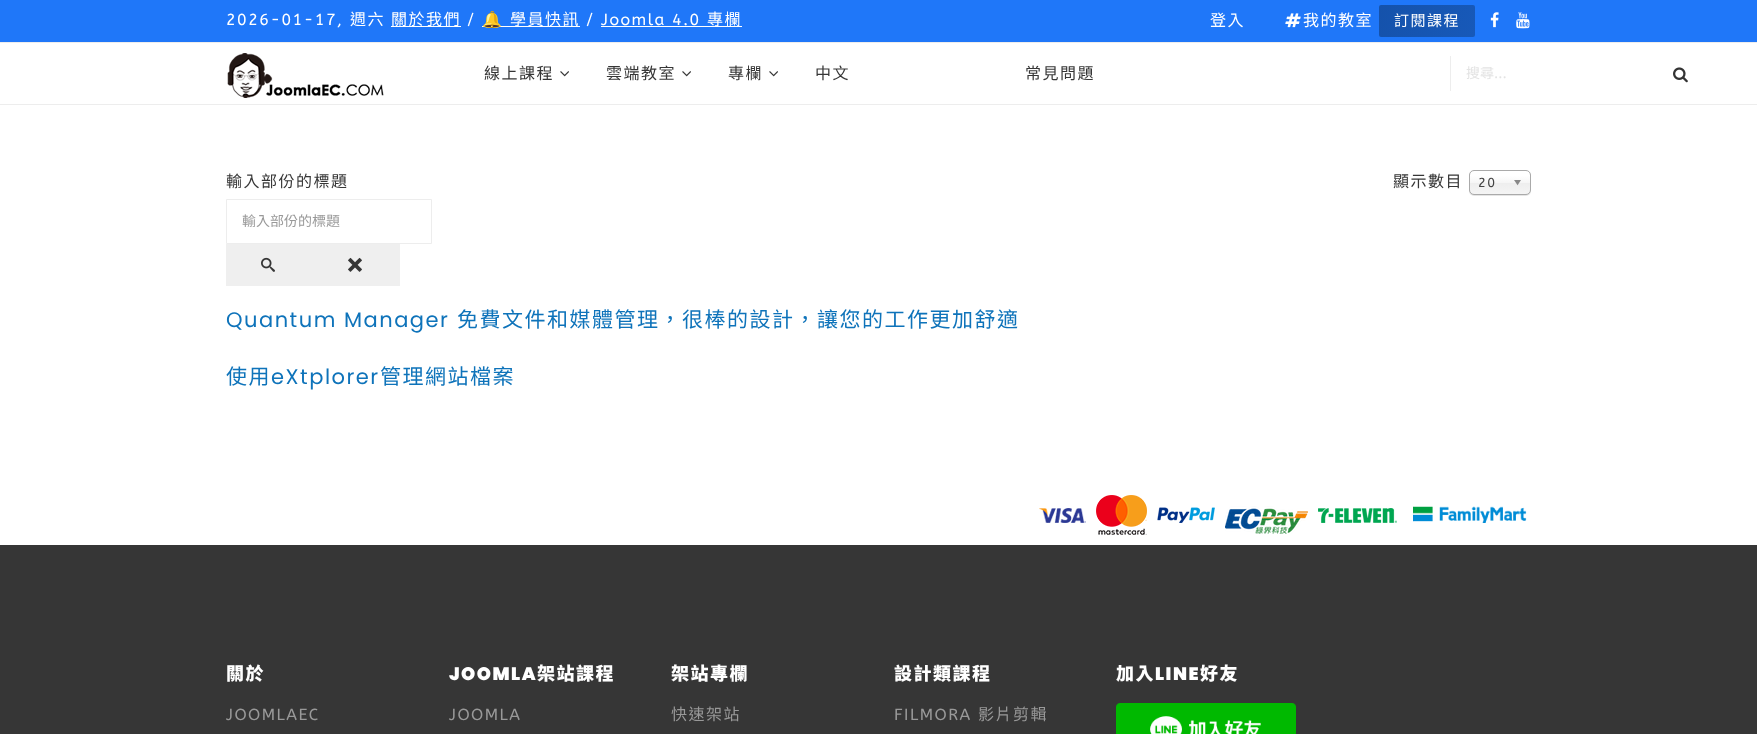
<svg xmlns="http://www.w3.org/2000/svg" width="1757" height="734">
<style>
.a{font:16px ABeeZee;letter-spacing:1.5px;fill:#fff}
.b{font:16px Noto Sans TC;letter-spacing:1.5px;fill:#fff}
.c{font:16px Noto Color Emoji;letter-spacing:1.5px;fill:#fff}
.d{font:15px Noto Sans TC;letter-spacing:1.5px;fill:#fff}
.e{font:16px Noto Sans TC;letter-spacing:1.5px;fill:#363636}
.f{font:14px Noto Sans TC;fill:#e3e3e3}
.g{font:14px ABeeZee;fill:#e3e3e3}
.h{font:14px Noto Sans TC;fill:#999}
.i{font:13px ABeeZee;letter-spacing:1.5px;fill:#444}
.j{font:21px Poppins;letter-spacing:1.5px;fill:#0e73ba}
.k{font:21px Noto Sans TC;letter-spacing:1.5px;fill:#0e73ba}
.l{font:900 18px Noto Sans TC;letter-spacing:1.5px;fill:#fff}
.m{font:16px ABeeZee;letter-spacing:1.5px;fill:#999}
.n{font:900 18px Poppins;letter-spacing:1.5px;fill:#fff}
.o{font:16px Noto Sans TC;letter-spacing:1.5px;fill:#999}
</style>
<defs>
<linearGradient id="g1" gradientUnits="userSpaceOnUse" x1="1476" y1="35" x2="1378" y2="7.1"><stop offset="0" stop-color="#1759b9"/><stop offset="1" stop-color="#1552ab"/></linearGradient>
<linearGradient id="g2" gradientUnits="userSpaceOnUse" x1="1500" y1="171" x2="1500" y2="194"><stop offset="0.2" stop-color="#fff"/><stop offset="0.5" stop-color="#f6f6f6"/><stop offset="0.52" stop-color="#eee"/><stop offset="1" stop-color="#f4f4f4"/></linearGradient>
</defs>
<rect width="100%" height="100%" fill="#fff"/>
<path fill="#1f77f9" d="M0 0h1757v42H0z"/>
<path fill="#fff" d="M391 26h70v1H391z"/>
<path fill="#fff" d="M482 26h98v1H482z"/>
<path fill="#fff" d="M601 26h141v1H601z"/>
<image href="1.png" x="1285" y="13" width="16" height="15"/>
<rect fill="url(#g1)" x="1379" y="5" width="96" height="32" rx="2"/>
<image href="2.png" x="1490" y="12" width="9" height="16"/>
<image href="3.png" x="1516" y="12" width="14" height="17"/>
<path fill="#ededed" d="M0 42h1757v1H0z"/>
<path fill="#ededed" d="M0 104h1757v1H0z"/>
<image href="4.png" x="227" y="53" width="157" height="45"/>
<image href="5.png" x="560" y="71" width="9" height="6"/>
<image href="5.png" x="682" y="71" width="9" height="6"/>
<image href="5.png" x="769" y="71" width="9" height="6"/>
<path fill="#ededed" d="M1450 56h1v35H1450z"/>
<image href="6.png" x="1673" y="67" width="15" height="16"/>
<path fill="none" stroke="#ededed" d="M226.5 199.5h205v44H226.5z"/>
<path fill="#efefef" d="M226 244h174v42H226z"/>
<image href="7.png" x="261" y="257" width="14" height="15"/>
<image href="8.png" x="348" y="257" width="14" height="15"/>
<rect fill="#0000001a" filter="blur(0.5px)" x="1469" y="171" width="62" height="25" rx="5"/>
<rect fill="url(#g2)" x="1470" y="171" width="60" height="23" rx="4"/>
<rect fill="none" stroke="#aaa" x="1469.5" y="170.5" width="61" height="24" rx="4.5"/>
<image href="9.png" x="1514" y="180" width="7" height="6"/>
<image href="10.png" x="1039" y="508" width="47" height="15"/>
<image href="11.png" x="1096" y="495" width="51" height="40"/>
<image href="12.png" x="1157" y="507" width="58" height="16"/>
<image href="13.png" x="1225" y="506" width="83" height="28"/>
<image href="14.png" x="1318" y="508" width="79" height="15"/>
<image href="15.png" x="1413" y="506" width="114" height="17"/>
<path fill="#363636" d="M0 545h1757v189H0z"/>
<image href="16.png" x="1116" y="703" width="180" height="31"/>
<text class="a" x="226" y="25">2026-01-17,</text>
<text class="b" x="350" y="25">週六</text>
<text class="b" x="391" y="25">關於我們</text>
<text class="a" x="467" y="25">/</text>
<text class="c" x="482" y="25">🔔</text>
<text class="b" x="510" y="25">學員快訊</text>
<text class="a" x="586" y="25">/ Joomla 4.0</text>
<text class="b" x="707" y="25">專欄</text>
<text class="b" x="1210" y="26">登入</text>
<text class="b" x="1303" y="26">我的教室</text>
<text class="d" x="1394" y="26">訂閱課程</text>
<text class="e" x="484" y="79">線上課程</text>
<text class="e" x="606" y="79">雲端教室</text>
<text class="e" x="728" y="79">專欄</text>
<text class="e" x="815" y="79">中文</text>
<text class="e" x="1025" y="79">常見問題</text>
<text class="f" x="1466" y="78">搜尋</text>
<text class="g" x="1494" y="78">...</text>
<text class="e" x="226" y="187">輸入部份的標題</text>
<text class="h" x="242" y="226">輸入部份的標題</text>
<text class="e" x="1393" y="187">顯示數目</text>
<text class="i" x="1478" y="187">20</text>
<text class="j" x="226" y="327">Quantum Manager</text>
<text class="k" x="457" y="327">免費文件和媒體管理，很棒的設計，讓您的工作更加舒適</text>
<text class="k" x="226" y="384">使用</text>
<text class="j" x="271" y="384">eXtplorer</text>
<text class="k" x="380" y="384">管理網站檔案</text>
<text class="l" x="226" y="680">關於</text>
<text class="m" x="226" y="720">JOOMLAEC</text>
<text class="n" x="449" y="680">JOOMLA</text>
<text class="l" x="537" y="680">架站課程</text>
<text class="m" x="449" y="720">JOOMLA</text>
<text class="l" x="671" y="680">架站專欄</text>
<text class="o" x="671" y="720">快速架站</text>
<text class="l" x="894" y="680">設計類課程</text>
<text class="m" x="894" y="720">FILMORA</text>
<text class="o" x="978" y="720">影片剪輯</text>
<text class="l" x="1116" y="680">加入</text>
<text class="n" x="1155" y="680">LINE</text>
<text class="l" x="1200" y="680">好友</text>
</svg>
